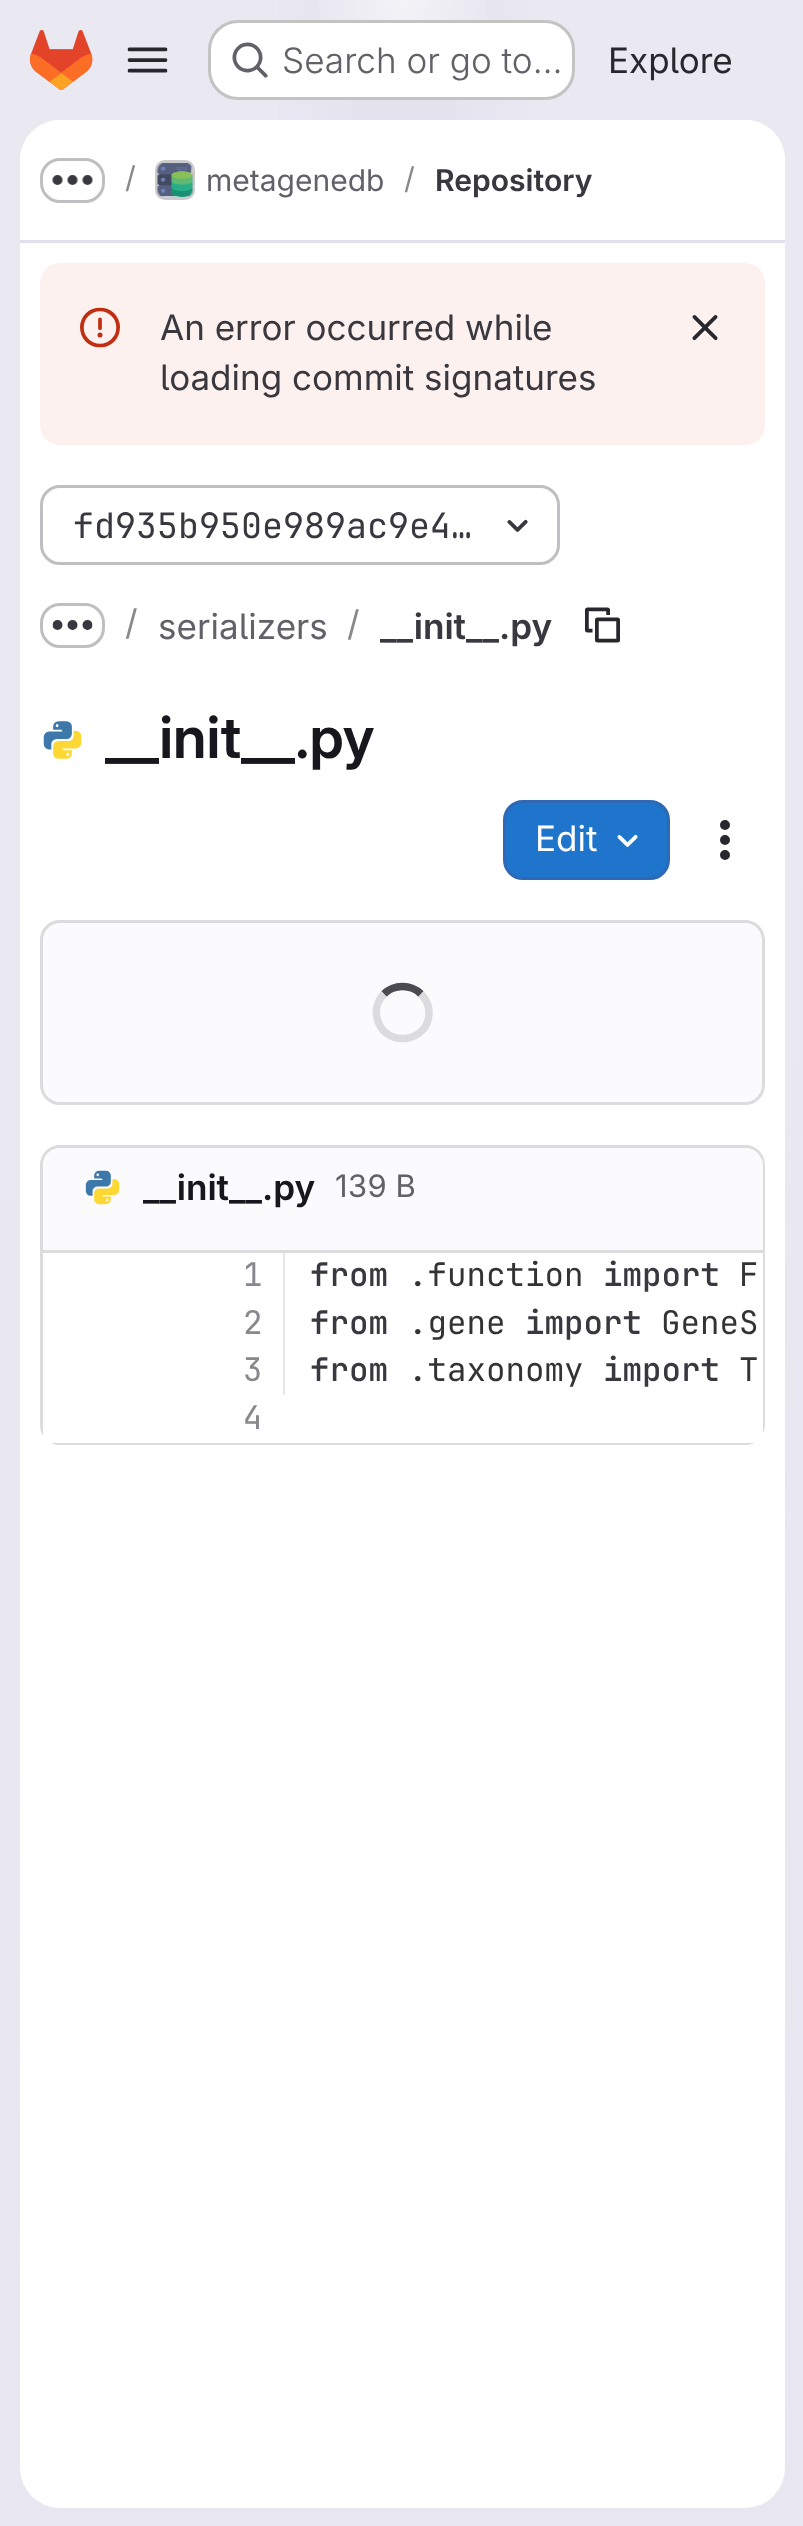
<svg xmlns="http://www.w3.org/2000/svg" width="803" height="2526">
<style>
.a{font:300 35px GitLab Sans;fill:#626168}
.b{font:35px GitLab Sans;fill:#28272d}
.c{font:30px GitLab Sans;fill:#89888d}
.d{font:30px GitLab Sans;fill:#626168}
.e{font:600 30px 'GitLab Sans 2';fill:#3a383f}
.f{font:35px GitLab Sans;fill:#3a383f}
.g{font:35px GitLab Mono;fill:#3a383f}
.h{font:35px GitLab Sans;fill:#89888d}
.i{font:35px GitLab Sans;fill:#626168}
.j{font:600 35px 'GitLab Sans 2';fill:#3a383f}
.k{font:600 57.5px GitLab Sans;fill:#18171d}
.l{font:35px GitLab Sans;fill:#fff}
.m{font:600 35px 'GitLab Sans 2';fill:#18171d}
.n{font:31px GitLab Sans;fill:#626168}
.o{font:32.5px GitLab Mono;fill:#89888d}
.p{font:600 32.5px GitLab Mono;fill:#3a383f}
.q{font:32.5px GitLab Mono;fill:#333}
</style>
<defs>
<linearGradient id="g1" gradientUnits="userSpaceOnUse" x1="631" y1="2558" x2="174" y2="-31"><stop offset="0" stop-color="#e8e6f0"/><stop offset="0.7" stop-color="#eae9f2"/></linearGradient>
<radialGradient id="g2" gradientUnits="userSpaceOnUse" cx="0" cy="0" r="1" gradientTransform="matrix(403 0 0 2528 403 0)"><stop offset="0" stop-color="#e4e2ed"/><stop offset="0.43" stop-color="#e4e2ed" stop-opacity="0"/></radialGradient>
<radialGradient id="g3" gradientUnits="userSpaceOnUse" cx="0" cy="0" r="1" gradientTransform="matrix(403 0 0 2528 403 0)"><stop offset="0" stop-color="#e4e2ec"/><stop offset="0.31" stop-color="#e4e2ec" stop-opacity="0"/></radialGradient>
<radialGradient id="g4" gradientUnits="userSpaceOnUse" cx="403" cy="0" r="2559"><stop offset="0" stop-color="#fff" stop-opacity="0.6"/><stop offset="0.04" stop-color="#fff" stop-opacity="0"/></radialGradient>
</defs>
<rect width="100%" height="100%" fill="#fff"/>
<path fill="url(#g1)" d="M0 0h803v2526H0z"/>
<path fill="url(#g2)" d="M278 0h250v120H278z"/>
<path fill="url(#g3)" d="M351 19h104v100H351z"/>
<path fill="url(#g4)" d="M319 0h168v87H319z"/>
<image href="1.png" x="30" y="30" width="63" height="60"/>
<image href="2.png" x="127" y="47" width="41" height="26"/>
<rect fill="#fff" x="208" y="20" width="367" height="80" rx="30"/>
<rect fill="none" stroke="#0505063d" stroke-width="3" x="209.5" y="21.5" width="364" height="77" rx="28.5"/>
<image href="3.png" x="232" y="42" width="36" height="36"/>
<rect fill="#fff" x="20" y="120" width="765" height="2388" rx="40"/>
<path fill="#fff" d="M60 120h685c22 0 40 18 40 40v83h-765v-83c0-22 18-40 40-40z"/>
<path fill="#e1dfec" d="M20 240h765v3H20z"/>
<rect fill="none" stroke="#bfbfc3" stroke-width="3" x="41.5" y="159.5" width="62" height="42" rx="18.5"/>
<image href="4.png" x="52" y="175" width="41" height="10"/>
<rect fill="none" stroke="#dcdcde" stroke-width="3" x="156.5" y="161.5" width="37" height="37" rx="8.5"/>
<image href="5.png" x="157" y="163" width="36" height="34"/>
<rect fill="none" stroke="#05050614" stroke-width="3" x="156.5" y="161.5" width="37" height="37" rx="8.5"/>
<rect fill="#fcf1ef" x="40" y="263" width="725" height="182" rx="20"/>
<image href="6.png" x="80" y="307" width="40" height="41"/>
<image href="7.png" x="692" y="315" width="26" height="26"/>
<rect fill="none" stroke="#bfbfc3" stroke-width="3" x="41.5" y="486.5" width="517" height="77" rx="18.5"/>
<image href="8.png" x="507" y="519" width="21" height="13"/>
<rect fill="none" stroke="#bfbfc3" stroke-width="3" x="41.5" y="604.5" width="62" height="42" rx="18.5"/>
<image href="9.png" x="52" y="620" width="41" height="10"/>
<image href="10.png" x="585" y="607" width="35" height="36"/>
<image href="11.png" x="43" y="721" width="39" height="38"/>
<rect fill="#1f75cb" stroke="#2f68b4" stroke-width="3" x="504.5" y="801.5" width="164" height="77" rx="18.5"/>
<image href="12.png" x="617" y="834" width="21" height="13"/>
<image href="13.png" x="720" y="820" width="10" height="40"/>
<rect fill="#fbfafd" stroke="#dcdcde" stroke-width="3" x="41.5" y="921.5" width="722" height="182" rx="18.5"/>
<path fill="none" stroke="#4c4b51" stroke-width="7.5" d="M384 994c10-10 27-10 37 0"/>
<path fill="none" stroke="#dcdcde" stroke-width="7.5" d="M421 994c5 5 8 11.5 8 18.5c0 31.5-46 36-52 5c-2-8.5 1-17.5 7-23.5"/>
<rect fill="none" stroke="#dcdcde" stroke-width="3" x="41.5" y="1146.5" width="722" height="297" rx="18.5"/>
<path fill="#fbfafd" d="M61 1148h684c10 0 18 8 18 18v87h-720v-87c0-10 8-18 18-18z"/>
<path fill="#dcdcde" d="M43 1250h720v3H43z"/>
<image href="14.png" x="85" y="1170" width="35" height="35"/>
<path fill="#fff" d="M43 1253h720v180c0 5.5-4.5 10-10 10h-700c-5.5 0-10-4.5-10-10z"/>
<path fill="#fff" d="M43 1434h9v9H43z"/>
<path fill="#e6e6e6" d="M283 1253h2v142H283z"/>
<text class="a" x="282" y="73">Search or go to…</text>
<text class="b" x="608" y="73">Explore</text>
<text class="c" x="125" y="188">/</text>
<text class="d" x="206" y="191">metagenedb</text>
<text class="c" x="404" y="189">/</text>
<text class="e" x="435" y="191">Repository</text>
<text class="f" x="160" y="340">An error occurred while</text>
<text class="f" x="160" y="390">loading commit signatures</text>
<text class="g" x="73" y="538">fd935b950e989ac9e4…</text>
<text class="h" x="125" y="635">/</text>
<text class="i" x="158" y="639">serializers</text>
<text class="h" x="347" y="636">/</text>
<text class="j" x="380" y="639">__init__.py</text>
<text class="k" x="105" y="758">__init__.py</text>
<text class="l" x="535" y="851">Edit</text>
<text class="m" x="143" y="1200">__init__.py</text>
<text class="n" x="335" y="1197">139 B</text>
<text class="o" x="243" y="1286">1</text>
<text class="o" x="243" y="1334">2</text>
<text class="o" x="243" y="1381">3</text>
<text class="o" x="243" y="1429">4</text>
<text class="p" x="310" y="1286">from</text>
<text class="q" x="408" y="1286">.function</text>
<text class="p" x="603" y="1286">import</text>
<text class="q" x="739" y="1286">F</text>
<text class="p" x="310" y="1334">from</text>
<text class="q" x="408" y="1334">.gene</text>
<text class="p" x="525" y="1334">import</text>
<text class="q" x="661" y="1334">GeneS</text>
<text class="p" x="310" y="1381">from</text>
<text class="q" x="408" y="1381">.taxonomy</text>
<text class="p" x="603" y="1381">import</text>
<text class="q" x="739" y="1381">T</text>
</svg>
